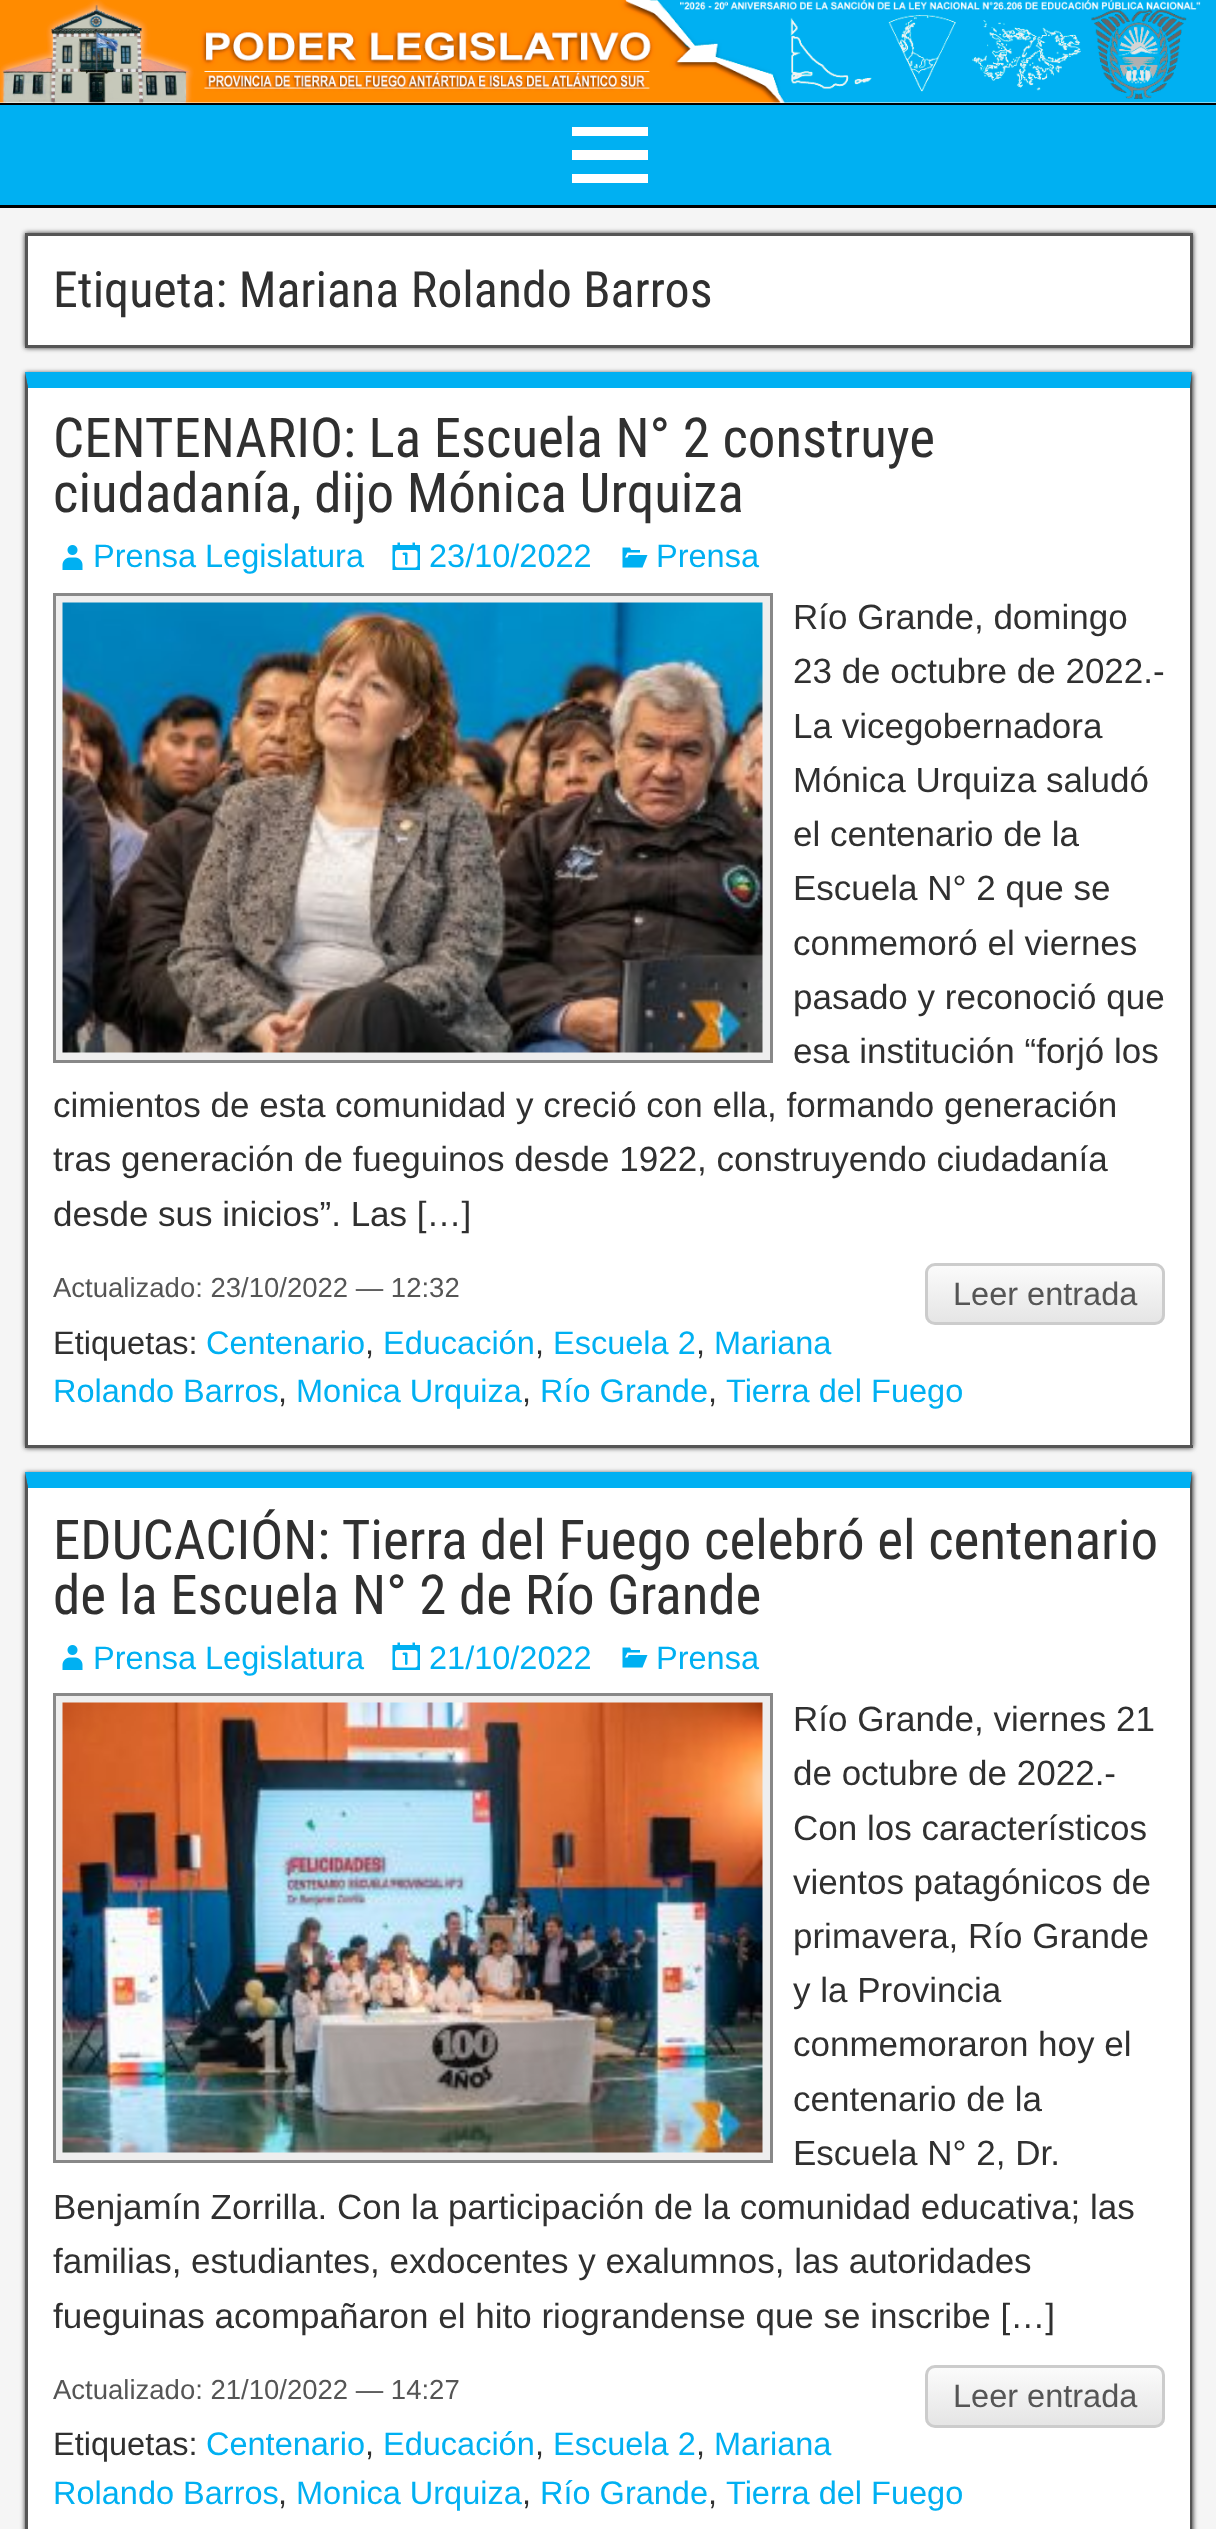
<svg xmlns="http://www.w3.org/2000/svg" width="1216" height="2529">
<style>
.a{font:50px Roboto Condensed;fill:#303030}
.b{font:55px Roboto Condensed;fill:#303030}
.c{font:32.5px Liberation Sans;fill:#00b0f2}
.d{font:35px Arimo;fill:#303030}
.e{font:27.5px Liberation Sans;fill:#555}
.f{font:32.5px Liberation Sans;fill:#555}
.g{font:32.5px Liberation Sans;fill:#303030}
</style>
<defs>
<clipPath id="clip1"><rect x="925" y="1263" width="240" height="62" rx="10"/></clipPath>
<linearGradient id="g1" gradientUnits="userSpaceOnUse" x1="1045" y1="1265" x2="1045" y2="1323"><stop offset="0" stop-color="#fbfbfb"/><stop offset="1" stop-color="#e5e5e5"/></linearGradient>
<clipPath id="clip2"><rect x="925" y="2365" width="240" height="63" rx="10"/></clipPath>
<linearGradient id="g2" gradientUnits="userSpaceOnUse" x1="1045" y1="2368" x2="1045" y2="2425"><stop offset="0" stop-color="#fbfbfb"/><stop offset="1" stop-color="#e5e5e5"/></linearGradient>
</defs>
<rect width="100%" height="100%" fill="#fff"/>
<path fill="#000" d="M0 103h1216v2H0z"/>
<image href="1.png" x="0" y="0" width="1216" height="103"/>
<path fill="#00b0f2" d="M0 105h1216v100H0z"/>
<path fill="#000" d="M0 205h1216v3H0z"/>
<path fill="#fff" d="M572 183v-9h76v9zm0-56h76v9h-76zm0 33v-10h76v10z"/>
<path fill="#f5f5f5" d="M0 208h1216v2321H0z"/>
<path fill="#333" filter="blur(2.5px)" d="M25 233h1168v115H25z"/>
<path fill="#fff" stroke="#555" stroke-width="3" d="M26.5 234.5h1165v112H26.5z"/>
<path fill="#333" filter="blur(2.5px)" d="M25 373h1168v1075H25z"/>
<path fill="#fff" d="M28 388h1162v1057H28z"/>
<path fill="#00b0f2" d="M25 372h1167l-2 16h-1162z"/>
<path fill="#555" d="M1192 372v1076l-2-3v-1057z"/>
<path fill="#555" d="M25 1445h1168v3H25z"/>
<path fill="#555" d="M25 1448v-1076l3 16v1057z"/>
<image href="2.png" x="62" y="545" width="21" height="25"/>
<image href="3.png" x="392" y="542" width="28" height="28"/>
<image href="4.png" x="622" y="547" width="26" height="21"/>
<path fill="#eee" stroke="#888" stroke-width="3" d="M54.5 594.5h717v467H54.5z"/>
<image href="5.png" x="62" y="602" width="701" height="451"/>
<g clip-path="url(#clip1)">
<path fill="url(#g1)" d="M925 1265h240v58H925z"/>
</g>
<rect fill="none" stroke="#ccc" stroke-width="3" x="926.5" y="1264.5" width="237" height="59" rx="8.5"/>
<path fill="#333" filter="blur(2.5px)" d="M25 1473h1168v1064H25z"/>
<path fill="#fff" d="M28 1488h1162v1041H28z"/>
<path fill="#00b0f2" d="M25 1472h1167l-2 16h-1162z"/>
<path fill="#555" d="M1192 1472v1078l-2-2v-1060z"/>
<path fill="#555" d="M25 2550v-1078l3 16v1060z"/>
<image href="2.png" x="62" y="1645" width="21" height="25"/>
<image href="3.png" x="392" y="1642" width="28" height="28"/>
<image href="4.png" x="622" y="1647" width="26" height="21"/>
<path fill="#eee" stroke="#888" stroke-width="3" d="M54.5 1694.5h717v467H54.5z"/>
<image href="6.png" x="62" y="1702" width="701" height="451"/>
<g clip-path="url(#clip2)">
<path fill="url(#g2)" d="M925 2368h240v57H925z"/>
</g>
<rect fill="none" stroke="#ccc" stroke-width="3" x="926.5" y="2366.5" width="237" height="60" rx="8.5"/>
<text class="a" x="53" y="307">Etiqueta: Mariana Rolando Barros</text>
<text class="b" x="53" y="457">CENTENARIO: La Escuela N° 2 construye</text>
<text class="b" x="53" y="512">ciudadanía, dijo Mónica Urquiza</text>
<text class="c" x="93" y="567">Prensa Legislatura</text>
<text class="c" x="429" y="567">23/10/2022</text>
<text class="c" x="656" y="567">Prensa</text>
<text class="d" x="793" y="629">Río Grande, domingo</text>
<text class="d" x="793" y="683">23 de octubre de 2022.-</text>
<text class="d" x="793" y="738">La vicegobernadora</text>
<text class="d" x="793" y="792">Mónica Urquiza saludó</text>
<text class="d" x="793" y="846">el centenario de la</text>
<text class="d" x="793" y="900">Escuela N° 2 que se</text>
<text class="d" x="793" y="955">conmemoró el viernes</text>
<text class="d" x="793" y="1009">pasado y reconoció que</text>
<text class="d" x="793" y="1063">esa institución “forjó los</text>
<text class="d" x="53" y="1117">cimientos de esta comunidad y creció con ella, formando generación</text>
<text class="d" x="53" y="1171">tras generación de fueguinos desde 1922, construyendo ciudadanía</text>
<text class="d" x="53" y="1226">desde sus inicios”. Las […]</text>
<text class="e" x="53" y="1297">Actualizado: 23/10/2022 — 12:32</text>
<text class="f" x="953" y="1305">Leer entrada</text>
<text class="g" x="53" y="1354">Etiquetas:</text>
<text class="c" x="206" y="1354">Centenario</text>
<text class="g" x="365" y="1354">,</text>
<text class="c" x="383" y="1354">Educación</text>
<text class="g" x="535" y="1354">,</text>
<text class="c" x="553" y="1354">Escuela 2</text>
<text class="g" x="696" y="1354">,</text>
<text class="c" x="714" y="1354">Mariana</text>
<text class="c" x="53" y="1402">Rolando Barros</text>
<text class="g" x="278" y="1402">,</text>
<text class="c" x="296" y="1402">Monica Urquiza</text>
<text class="g" x="522" y="1402">,</text>
<text class="c" x="540" y="1402">Río Grande</text>
<text class="g" x="708" y="1402">,</text>
<text class="c" x="726" y="1402">Tierra del Fuego</text>
<text class="b" x="53" y="1559">EDUCACIÓN: Tierra del Fuego celebró el centenario</text>
<text class="b" x="53" y="1614">de la Escuela N° 2 de Río Grande</text>
<text class="c" x="93" y="1669">Prensa Legislatura</text>
<text class="c" x="429" y="1669">21/10/2022</text>
<text class="c" x="656" y="1669">Prensa</text>
<text class="d" x="793" y="1731">Río Grande, viernes 21</text>
<text class="d" x="793" y="1785">de octubre de 2022.-</text>
<text class="d" x="793" y="1840">Con los característicos</text>
<text class="d" x="793" y="1894">vientos patagónicos de</text>
<text class="d" x="793" y="1948">primavera, Río Grande</text>
<text class="d" x="793" y="2002">y la Provincia</text>
<text class="d" x="793" y="2056">conmemoraron hoy el</text>
<text class="d" x="793" y="2111">centenario de la</text>
<text class="d" x="793" y="2165">Escuela N° 2, Dr.</text>
<text class="d" x="53" y="2219">Benjamín Zorrilla. Con la participación de la comunidad educativa; las</text>
<text class="d" x="53" y="2273">familias, estudiantes, exdocentes y exalumnos, las autoridades</text>
<text class="d" x="53" y="2328">fueguinas acompañaron el hito riograndense que se inscribe […]</text>
<text class="e" x="53" y="2399">Actualizado: 21/10/2022 — 14:27</text>
<text class="f" x="953" y="2407">Leer entrada</text>
<text class="g" x="53" y="2455">Etiquetas:</text>
<text class="c" x="206" y="2455">Centenario</text>
<text class="g" x="365" y="2455">,</text>
<text class="c" x="383" y="2455">Educación</text>
<text class="g" x="535" y="2455">,</text>
<text class="c" x="553" y="2455">Escuela 2</text>
<text class="g" x="696" y="2455">,</text>
<text class="c" x="714" y="2455">Mariana</text>
<text class="c" x="53" y="2504">Rolando Barros</text>
<text class="g" x="278" y="2504">,</text>
<text class="c" x="296" y="2504">Monica Urquiza</text>
<text class="g" x="522" y="2504">,</text>
<text class="c" x="540" y="2504">Río Grande</text>
<text class="g" x="708" y="2504">,</text>
<text class="c" x="726" y="2504">Tierra del Fuego</text>
</svg>
